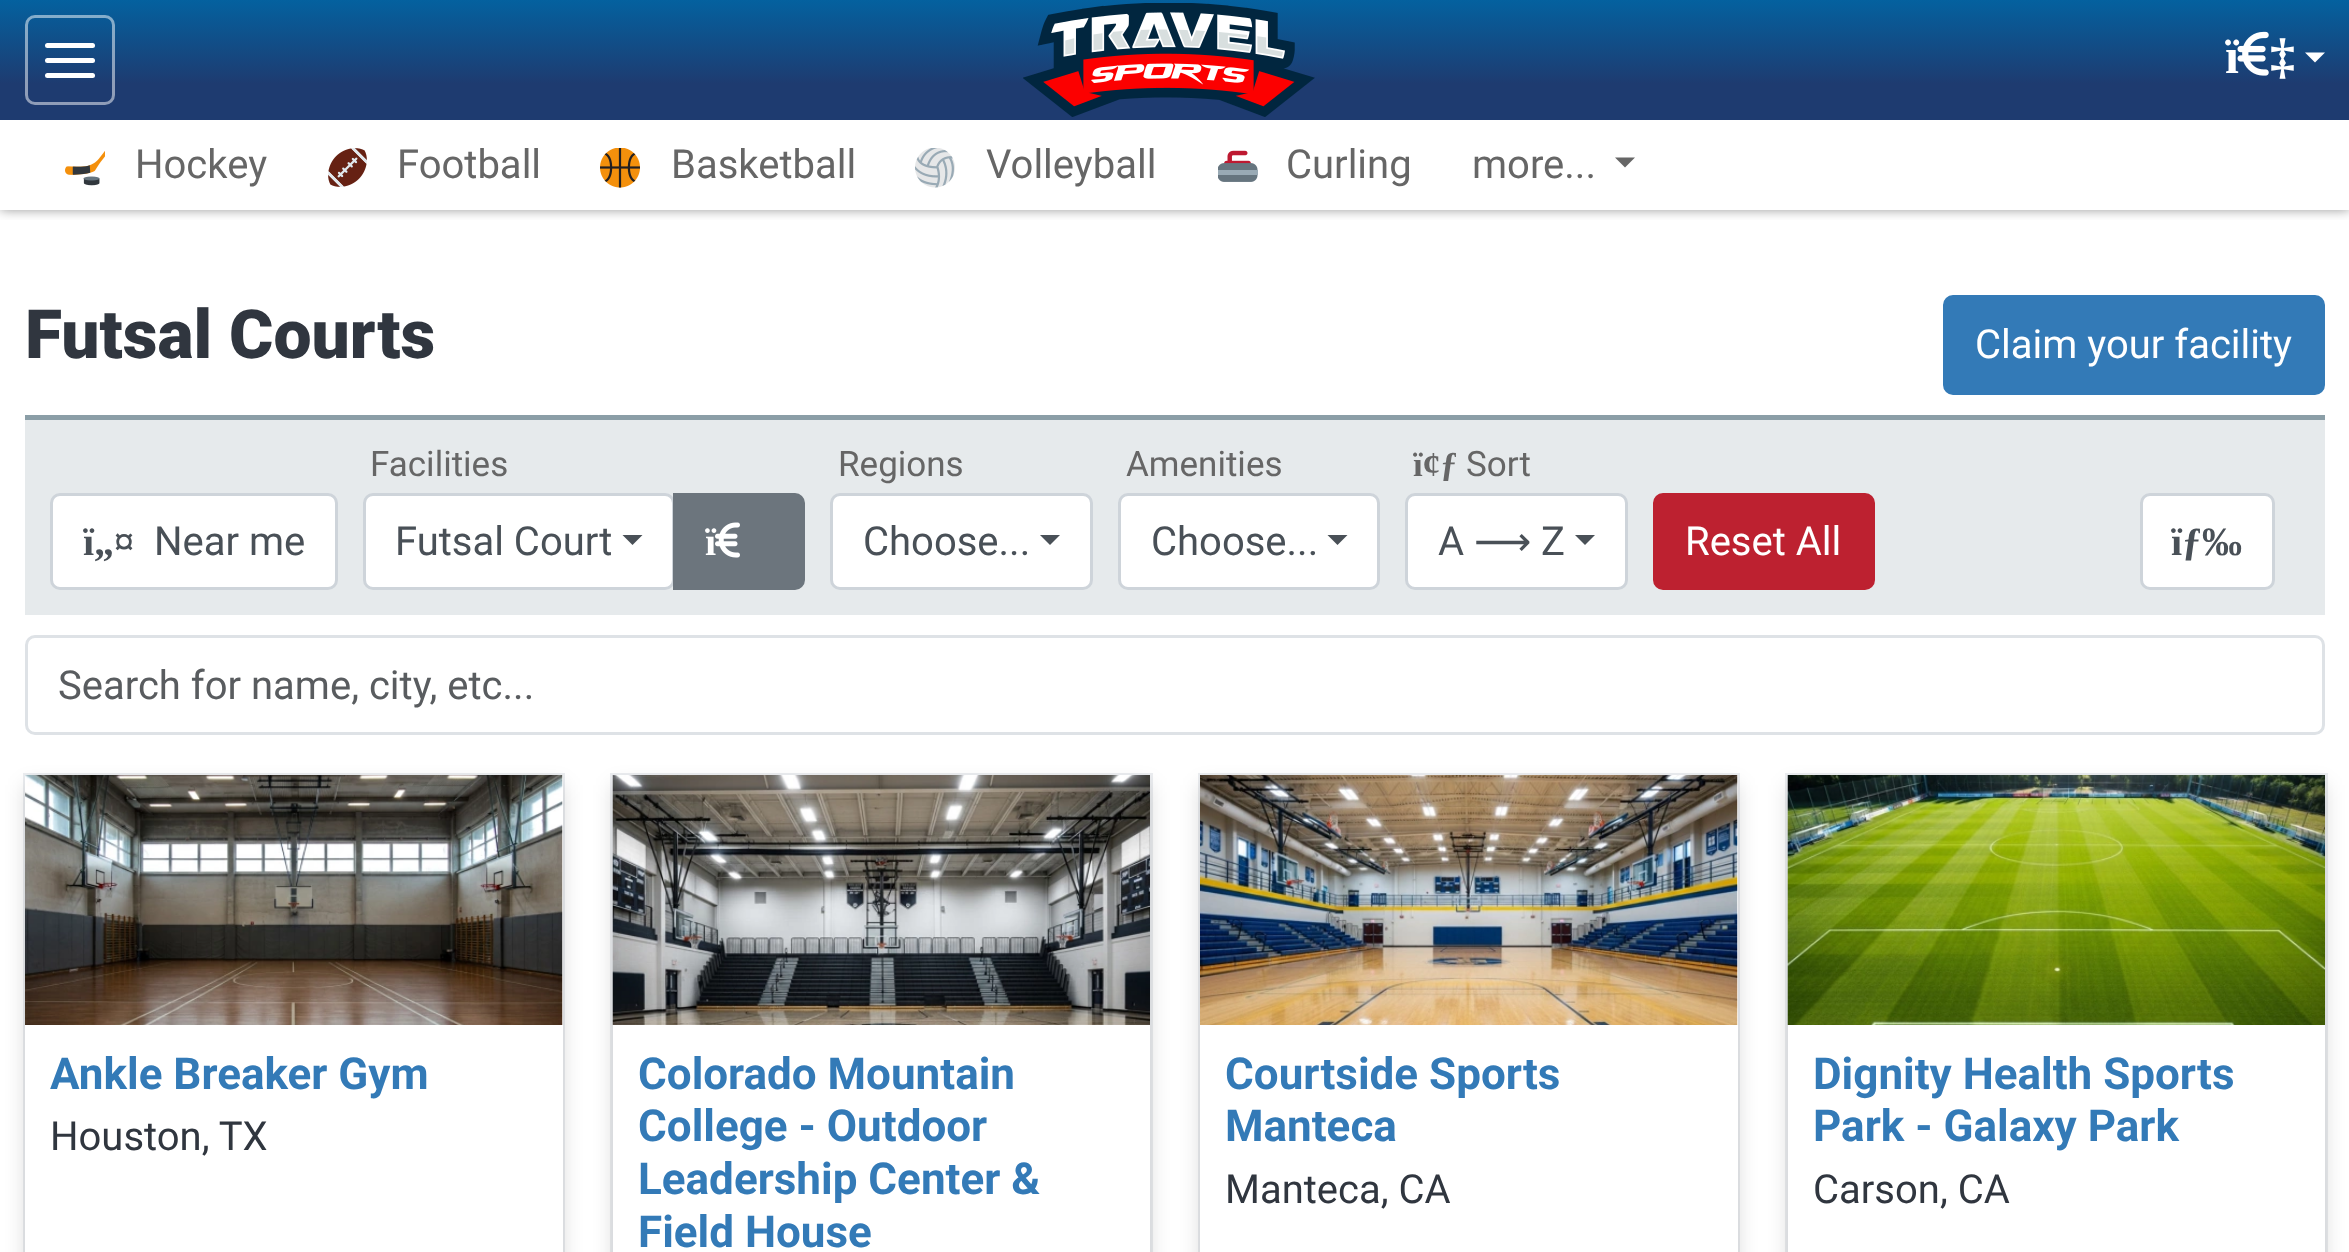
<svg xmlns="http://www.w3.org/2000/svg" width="2349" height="1252">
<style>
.a{font:bold 50px Liberation Serif;fill:#fff}
.b{font:40px Roboto;fill:#666}
.c{font:900 67.75px Roboto;fill:#30363f}
.d{font:40px Roboto;fill:#fff}
.e{font:bold 40px Liberation Serif;fill:#495057}
.f{font:40px Roboto;fill:#495057}
.g{font:35px Roboto;fill:#666}
.h{font:bold 40px Liberation Serif;fill:#fff}
.i{font:bold 35px Liberation Serif;fill:#666}
.j{font:40px DejaVu Sans;fill:#495057}
.k{font:40px Roboto;fill:#595c5f}
.l{font:bold 44px Roboto;fill:#337ab7}
.m{font:40px Roboto;fill:#30363f}
</style>
<defs>
<clipPath id="clip1"><path d="M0 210h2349v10H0z"/></clipPath>
<linearGradient id="g1" gradientUnits="userSpaceOnUse" x1="1175" y1="120" x2="1175" y2="0"><stop offset="0" stop-color="#1e3b70"/><stop offset="0.3" stop-color="#1e3b70"/><stop offset="1" stop-color="#04619f"/></linearGradient>
</defs>
<rect width="100%" height="100%" fill="#fff"/>
<g clip-path="url(#clip1)">
<path fill="#00000066" filter="blur(6px)" d="M0 0h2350v210H0z"/>
</g>
<path fill="url(#g1)" d="M0 0h2349v120H0z"/>
<rect fill="none" stroke="#ffffff80" stroke-width="3" x="26.5" y="16.5" width="87" height="87" rx="8.5"/>
<rect fill="#fff" x="45" y="43" width="50" height="5" rx="2.5"/>
<rect fill="#fff" x="45" y="58" width="50" height="5" rx="2.5"/>
<rect fill="#fff" x="45" y="73" width="50" height="5" rx="2.5"/>
<image href="1.png" x="1023" y="3" width="292" height="114"/>
<image href="2.png" x="2237" y="31" width="32" height="45"/>
<path fill="#fff" d="M2305 52.5h20l-10 10z"/>
<image href="3.png" x="65" y="151" width="40" height="35"/>
<image href="4.png" x="328" y="148" width="39" height="39"/>
<image href="5.png" x="600" y="148" width="40" height="40"/>
<image href="6.png" x="915" y="148" width="40" height="40"/>
<image href="7.png" x="1218" y="150" width="40" height="32"/>
<path fill="#666" d="M1615 157.5h20l-10 10z"/>
<rect fill="#337ab7" stroke="#337ab7" stroke-width="3" x="1944.5" y="296.5" width="379" height="97" rx="8.5"/>
<path fill="#e6eaec" d="M25 420h2300v195H25z"/>
<path fill="#8b9ea7" d="M25 415h2300v5H25z"/>
<rect fill="#fff" stroke="#ced4da" stroke-width="3" x="51.5" y="494.5" width="285" height="94" rx="8.5"/>
<rect fill="#fff" stroke="#ced4da" stroke-width="3" x="364.5" y="494.5" width="309" height="94" rx="8.5"/>
<path fill="#495057" d="M622.5 535h20l-10 10z"/>
<path fill="#6c757d" stroke="#6c757d" stroke-width="3" d="M674.5 494.5h120.5c4.5 0 8.5 4 8.5 8.5v77c0 4.5-4 8.5-8.5 8.5h-120.5z"/>
<image href="8.png" x="715" y="522" width="25" height="36"/>
<rect fill="#fff" stroke="#ced4da" stroke-width="3" x="831.5" y="494.5" width="260" height="94" rx="8.5"/>
<path fill="#495057" d="M1040 535h20l-10 10z"/>
<rect fill="#fff" stroke="#ced4da" stroke-width="3" x="1119.5" y="494.5" width="259" height="94" rx="8.5"/>
<path fill="#495057" d="M1327.5 535h20l-10 10z"/>
<rect fill="#fff" stroke="#ced4da" stroke-width="3" x="1406.5" y="494.5" width="220" height="94" rx="8.5"/>
<path fill="#495057" d="M1575 535h20l-10 10z"/>
<rect fill="#bd2130" stroke="#bd2130" stroke-width="3" x="1654.5" y="494.5" width="219" height="94" rx="8.5"/>
<rect fill="#fff" stroke="#ced4da" stroke-width="3" x="2141.5" y="494.5" width="132" height="94" rx="8.5"/>
<rect fill="none" stroke="#dee2e6" stroke-width="3" x="26.5" y="636.5" width="2297" height="97" rx="8.5"/>
<path fill="none" stroke="#ebedf0" stroke-width="3" d="M24.5 774.5h539v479H24.5z"/>
<path fill="#00000026" filter="blur(10px)" d="M25 785h538v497H25z"/>
<path fill="#fff" d="M25 775h538v477H25z"/>
<image href="9.png" x="25" y="775" width="538" height="250"/>
<path fill="none" stroke="#ebedf0" stroke-width="3" d="M611.5 774.5h540v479H611.5z"/>
<path fill="#00000026" filter="blur(10px)" d="M613 785h537v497H613z"/>
<path fill="#fff" d="M613 1025h537v227H613z"/>
<image href="10.png" x="612" y="775" width="538" height="250"/>
<path fill="none" stroke="#ebedf0" stroke-width="3" d="M1199.5 774.5h539v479H1199.5z"/>
<path fill="#00000026" filter="blur(10px)" d="M1200 785h538v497H1200z"/>
<path fill="#fff" d="M1200 775h538v477H1200z"/>
<image href="11.png" x="1200" y="775" width="538" height="250"/>
<path fill="none" stroke="#ebedf0" stroke-width="3" d="M1786.5 774.5h540v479H1786.5z"/>
<path fill="#00000026" filter="blur(10px)" d="M1788 785h537v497H1788z"/>
<path fill="#fff" d="M1788 1025h537v227H1788z"/>
<image href="12.png" x="1787" y="775" width="538" height="250"/>
<text class="a" x="2225" y="73">ï</text>
<text class="a" x="2270" y="73">‡</text>
<text class="b" x="135" y="178">Hockey</text>
<text class="b" x="397" y="178">Football</text>
<text class="b" x="671" y="178">Basketball</text>
<text class="b" x="986" y="178">Volleyball</text>
<text class="b" x="1286" y="178">Curling</text>
<text class="b" x="1472" y="178">more...</text>
<text class="c" x="25" y="358">Futsal Courts</text>
<text class="d" x="1975" y="358">Claim your facility</text>
<text class="e" x="83" y="555">ï„¤</text>
<text class="f" x="154" y="555">Near me</text>
<text class="g" x="370" y="476">Facilities</text>
<text class="f" x="395" y="555">Futsal Court</text>
<text class="h" x="705" y="555">ï</text>
<text class="g" x="838" y="476">Regions</text>
<text class="f" x="863" y="555">Choose...</text>
<text class="g" x="1126" y="476">Amenities</text>
<text class="f" x="1151" y="555">Choose...</text>
<text class="i" x="1413" y="476">ï¢ƒ</text>
<text class="g" x="1466" y="476">Sort</text>
<text class="f" x="1438" y="555">A</text>
<text class="j" x="1474" y="555">⟶</text>
<text class="f" x="1541" y="555">Z</text>
<text class="d" x="1685" y="555">Reset All</text>
<text class="e" x="2171" y="555">ïƒ‰</text>
<text class="k" x="58" y="699">Search for name, city, etc...</text>
<text class="l" x="50" y="1089">Ankle Breaker Gym</text>
<text class="m" x="50" y="1150">Houston, TX</text>
<text class="l" x="638" y="1089">Colorado Mountain</text>
<text class="l" x="638" y="1141">College - Outdoor</text>
<text class="l" x="638" y="1194">Leadership Center &amp;</text>
<text class="l" x="638" y="1247">Field House</text>
<text class="l" x="1225" y="1089">Courtside Sports</text>
<text class="l" x="1225" y="1141">Manteca</text>
<text class="m" x="1225" y="1203">Manteca, CA</text>
<text class="l" x="1813" y="1089">Dignity Health Sports</text>
<text class="l" x="1813" y="1141">Park - Galaxy Park</text>
<text class="m" x="1813" y="1203">Carson, CA</text>
</svg>
